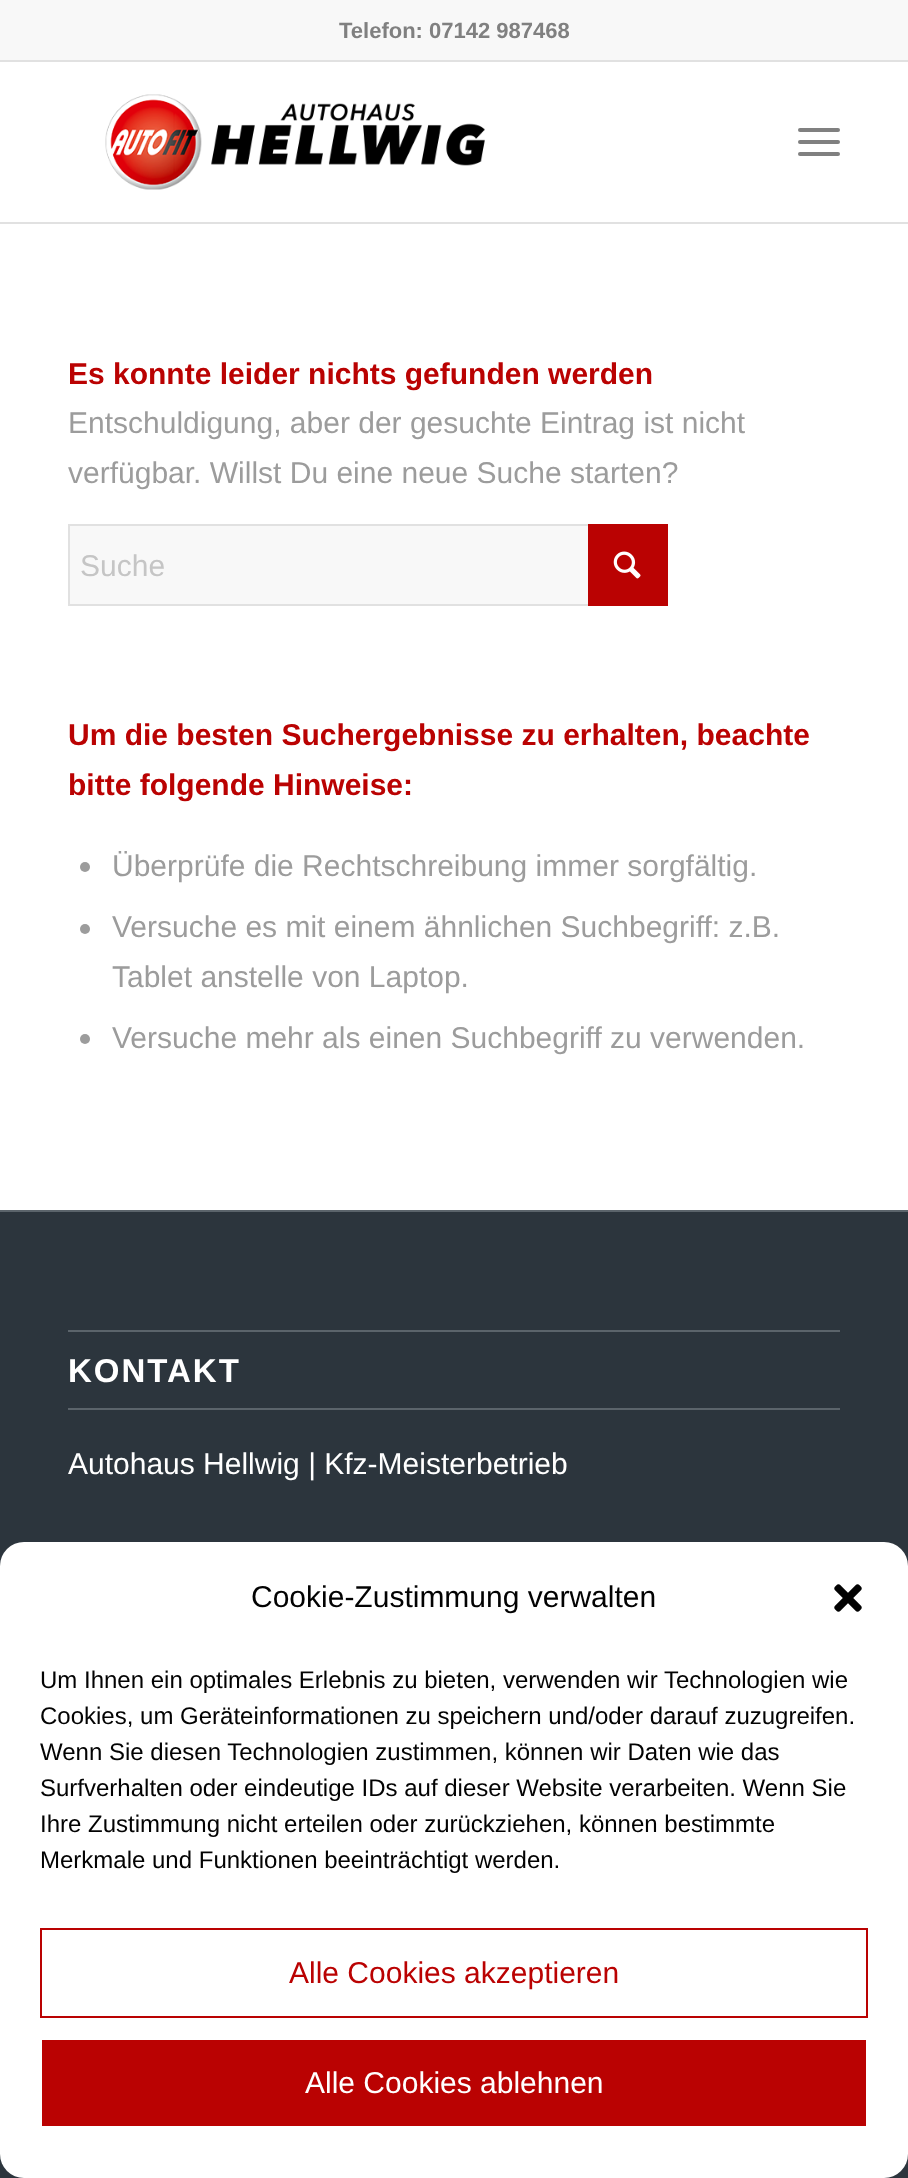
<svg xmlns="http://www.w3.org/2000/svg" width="908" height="2178">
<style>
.a{font:bold 22px Liberation Sans;fill:#808080}
.b{font:bold 30px Liberation Sans;fill:#ba0202}
.c{font:30px Liberation Sans;fill:#9c9c9c}
.d{font:30px Liberation Sans;fill:#c5c5c5}
.e{font:bold 33px Liberation Sans;letter-spacing:2px;fill:#fff}
.f{font:30px Liberation Sans;fill:#fff}
.g{font:30px Liberation Sans;fill:#020202}
.h{font:24px Liberation Sans;fill:#020202}
.i{font:30px Liberation Sans;fill:#ba0202}
</style>
<rect width="100%" height="100%" fill="#fff"/>
<path fill="#f8f8f8" d="M0 0h908v60H0z"/>
<path fill="#e1e1e1" d="M0 60h908v2H0z"/>
<path fill="#e1e1e1" d="M0 222h908v2H0z"/>
<image href="1.png" x="105" y="94" width="380" height="96"/>
<rect fill="#808080" x="798" y="140" width="42" height="4" rx="2"/>
<rect fill="#808080" x="798" y="128" width="42" height="4" rx="2"/>
<rect fill="#808080" x="798" y="152" width="42" height="4" rx="2"/>
<path fill="#f8f8f8" d="M70 526h518v78H70z"/>
<path fill="none" stroke="#e1e1e1" stroke-width="2" d="M69 525h598v80H69z"/>
<path fill="#ba0202" d="M588 524h80v82H588z"/>
<image href="2.png" x="613" y="551" width="28" height="28"/>
<circle fill="#9c9c9c" cx="85" cy="867" r="5"/>
<circle fill="#9c9c9c" cx="85" cy="929" r="5"/>
<circle fill="#9c9c9c" cx="85" cy="1039" r="5"/>
<path fill="#2c353d" d="M0 1212h908v966H0z"/>
<path fill="#5b646b" d="M0 1210h908v2H0z"/>
<path fill="#5b646b" d="M68 1330h772v2H68z"/>
<path fill="#5b646b" d="M68 1408h772v2H68z"/>
<rect fill="#fff" y="1542" width="908" height="636" rx="24"/>
<image href="3.png" x="834" y="1584" width="28" height="28"/>
<path fill="none" stroke="#ba0202" stroke-width="2" d="M41 1929h826v88H41z"/>
<path fill="#ba0202" d="M42 2040h824v86H42z"/>
<text class="a" x="339" y="38">Telefon: 07142 987468</text>
<text class="b" x="68" y="384">Es konnte leider nichts gefunden werden</text>
<text class="c" x="68" y="433">Entschuldigung, aber der gesuchte Eintrag ist nicht</text>
<text class="c" x="68" y="483">verfügbar. Willst Du eine neue Suche starten?</text>
<text class="d" x="80" y="576">Suche</text>
<text class="b" x="68" y="745">Um die besten Suchergebnisse zu erhalten, beachte</text>
<text class="b" x="68" y="795">bitte folgende Hinweise:</text>
<text class="c" x="112" y="876">Überprüfe die Rechtschreibung immer sorgfältig.</text>
<text class="c" x="112" y="937">Versuche es mit einem ähnlichen Suchbegriff: z.B.</text>
<text class="c" x="112" y="987">Tablet anstelle von Laptop.</text>
<text class="c" x="112" y="1048">Versuche mehr als einen Suchbegriff zu verwenden.</text>
<text class="e" x="68" y="1382">KONTAKT</text>
<text class="f" x="68" y="1474">Autohaus Hellwig | Kfz-Meisterbetrieb</text>
<text class="g" x="251" y="1607">Cookie-Zustimmung verwalten</text>
<text class="h" x="40" y="1688">Um Ihnen ein optimales Erlebnis zu bieten, verwenden wir Technologien wie</text>
<text class="h" x="40" y="1724">Cookies, um Geräteinformationen zu speichern und/oder darauf zuzugreifen.</text>
<text class="h" x="40" y="1760">Wenn Sie diesen Technologien zustimmen, können wir Daten wie das</text>
<text class="h" x="40" y="1796">Surfverhalten oder eindeutige IDs auf dieser Website verarbeiten. Wenn Sie</text>
<text class="h" x="40" y="1832">Ihre Zustimmung nicht erteilen oder zurückziehen, können bestimmte</text>
<text class="h" x="40" y="1868">Merkmale und Funktionen beeinträchtigt werden.</text>
<text class="i" x="289" y="1983">Alle Cookies akzeptieren</text>
<text class="f" x="305" y="2093">Alle Cookies ablehnen</text>
</svg>
